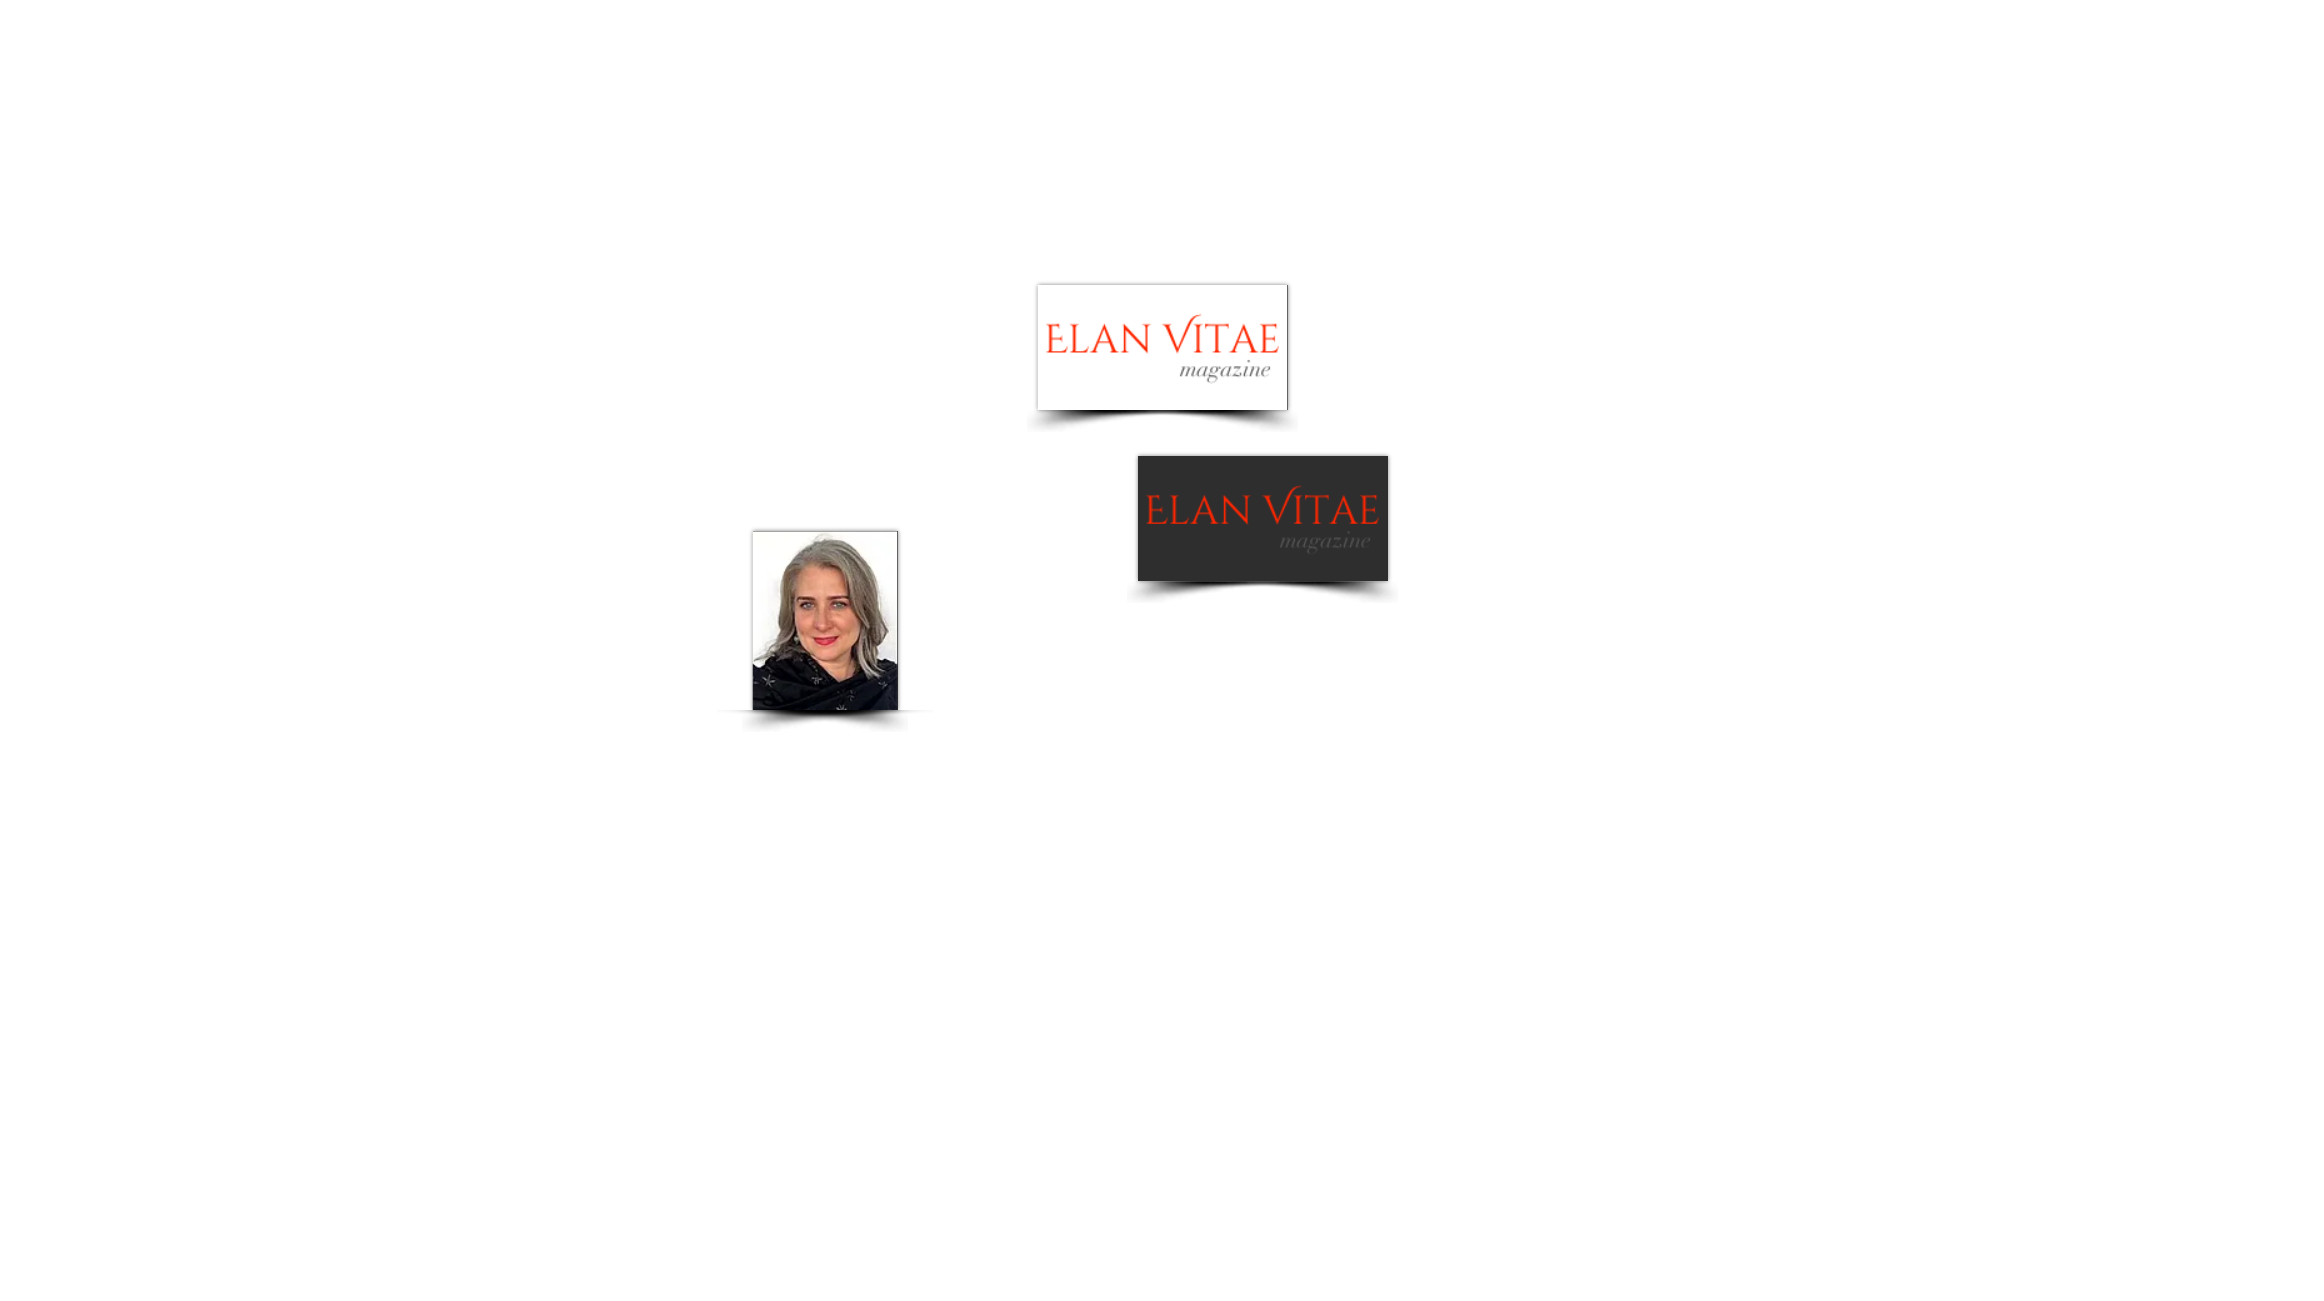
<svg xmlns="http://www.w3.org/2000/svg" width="2324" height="1301">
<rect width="100%" height="100%" fill="#fff"/>
<path fill="#00000080" filter="blur(2px)" d="M1038 285h250v125H1038z"/>
<path fill="#2f2e2e" d="M1287 285h1v125H1287z"/>
<image href="1.png" x="1037" y="285" width="251" height="125"/>
<image href="2.png" x="1027" y="410" width="184" height="22"/>
<image href="3.png" x="1135" y="410" width="163" height="22"/>
<path fill="#00000080" filter="blur(2px)" d="M753 531h145v179H753z"/>
<path fill="#2f2e2e" d="M753 531h145v179H753z"/>
<image href="4.png" x="752" y="531" width="146" height="179"/>
<image href="6.png" x="742" y="710" width="191" height="22"/>
<image href="5.png" x="717" y="710" width="191" height="22"/>
<path fill="#00000080" filter="blur(2px)" d="M1138 456h250v125H1138z"/>
<path fill="#2f2e2e" d="M1138 456h250v125H1138z"/>
<image href="7.png" x="1146" y="485" width="233" height="70"/>
<image href="8.png" x="1127" y="581" width="184" height="22"/>
<image href="9.png" x="1231" y="581" width="167" height="22"/>
</svg>
